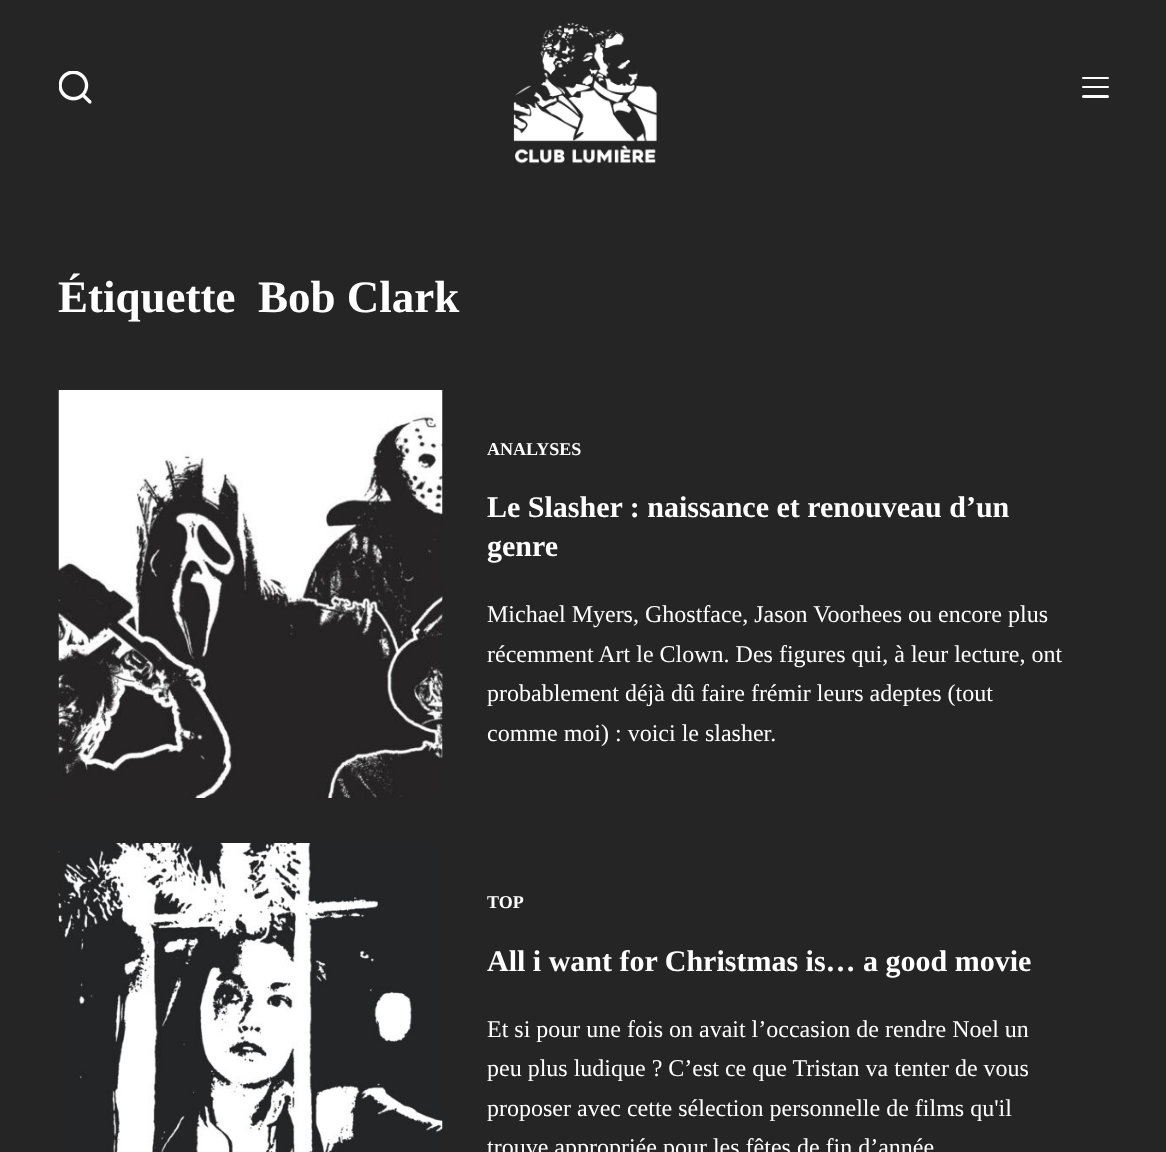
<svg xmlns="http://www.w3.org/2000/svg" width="1166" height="1152">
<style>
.a{font:bold 45px Liberation Serif;fill:#fff}
.b{font:bold 18px Liberation Serif;fill:#fff}
.c{font:bold 30px Liberation Serif;fill:#fff}
.d{font:24px Liberation Serif;fill:#fff}
</style>
<rect width="100%" height="100%" fill="#252525"/>
<image href="1.png" x="59" y="71" width="33" height="33"/>
<image href="2.png" x="513" y="22" width="144" height="142"/>
<rect fill="#fdfdfd" x="1082" y="77" width="27" height="2" rx="1"/>
<rect fill="#fdfdfd" x="1082" y="86" width="27" height="2" rx="1"/>
<rect fill="#fdfdfd" x="1082" y="95" width="27" height="3" rx="1.5"/>
<image href="3.png" x="58" y="390" width="385" height="408"/>
<image href="4.png" x="58" y="843" width="385" height="309"/>
<text class="a" x="58" y="312">Étiquette</text>
<text class="a" x="258" y="312">Bob Clark</text>
<text class="b" x="487" y="455">ANALYSES</text>
<text class="c" x="487" y="517">Le Slasher : naissance et renouveau d’un</text>
<text class="c" x="487" y="556">genre</text>
<text class="d" x="487" y="622">Michael Myers, Ghostface, Jason Voorhees ou encore plus</text>
<text class="d" x="487" y="662">récemment Art le Clown. Des figures qui, à leur lecture, ont</text>
<text class="d" x="487" y="701">probablement déjà dû faire frémir leurs adeptes (tout</text>
<text class="d" x="487" y="741">comme moi) : voici le slasher.</text>
<text class="b" x="487" y="908">TOP</text>
<text class="c" x="487" y="971">All i want for Christmas is… a good movie</text>
<text class="d" x="487" y="1037">Et si pour une fois on avait l’occasion de rendre Noel un</text>
<text class="d" x="487" y="1076">peu plus ludique ? C’est ce que Tristan va tenter de vous</text>
<text class="d" x="487" y="1116">proposer avec cette sélection personnelle de films qu'il</text>
<text class="d" x="487" y="1155">trouve appropriée pour les fêtes de fin d’année</text>
</svg>
